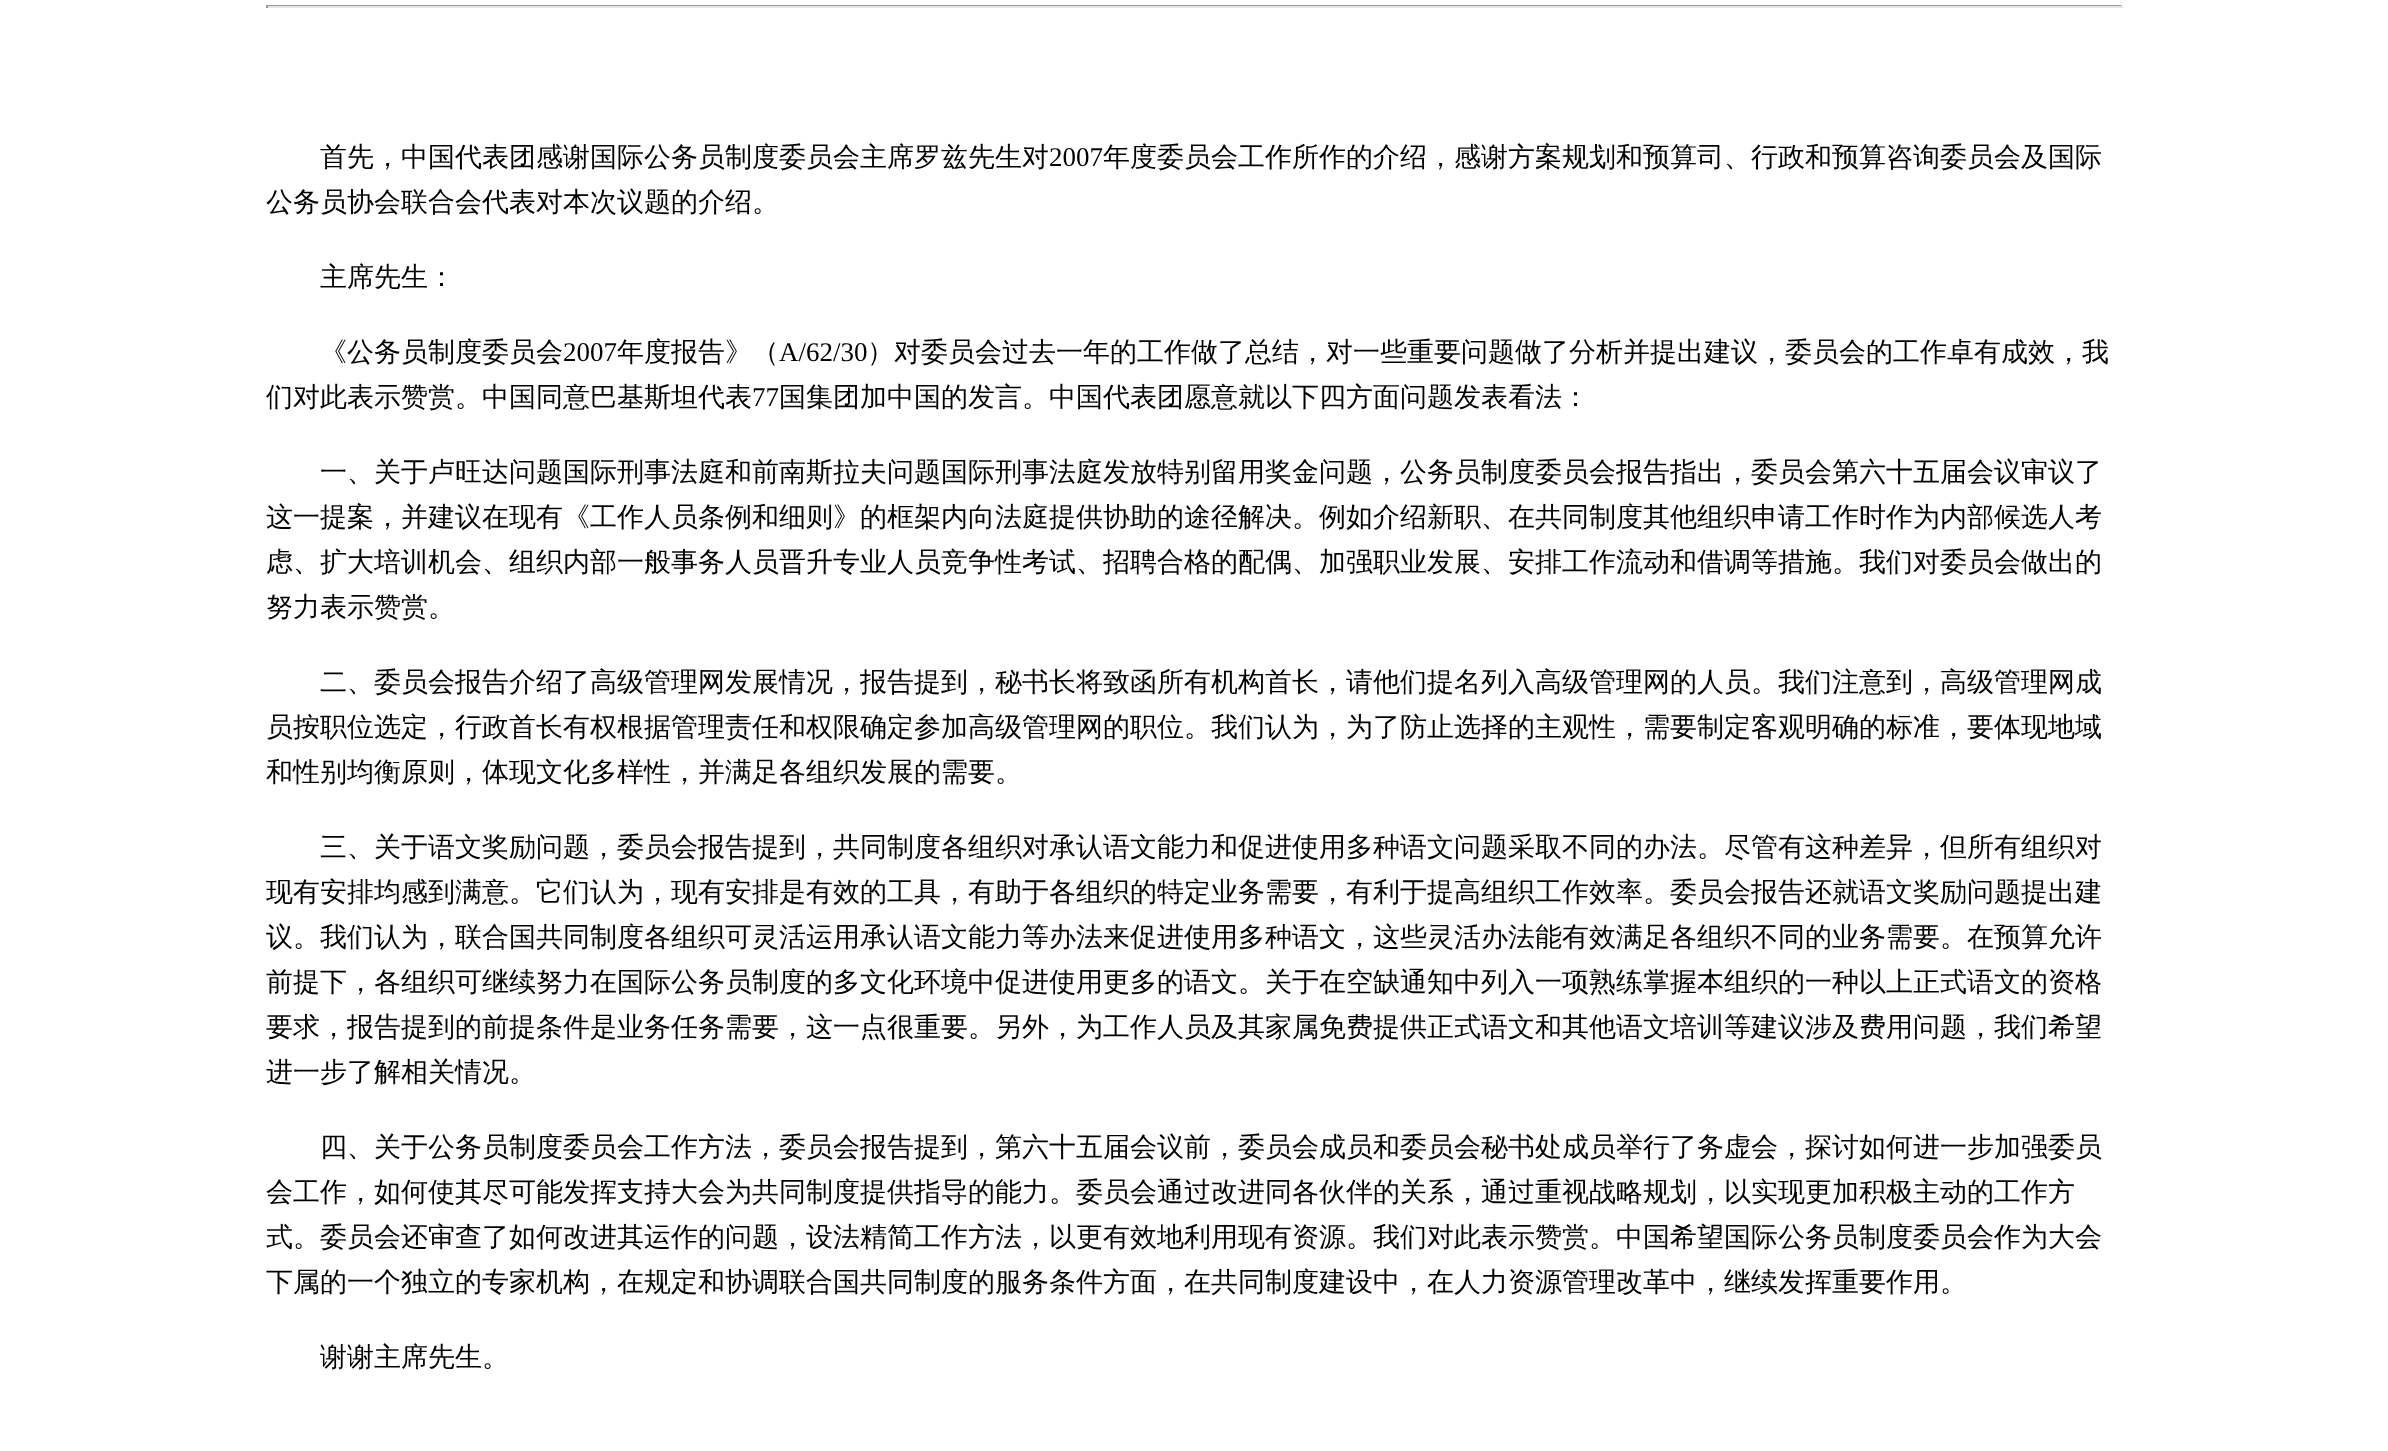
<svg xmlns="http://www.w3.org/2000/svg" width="2388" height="1451">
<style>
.a{font:500 27px WenQuanYi Zen Hei;fill:#000}
.b{font:27px Liberation Serif;fill:#000}
</style>
<rect width="100%" height="100%" fill="#fff"/>
<path fill="#999" d="M266 5h1857v1H266z"/>
<path fill="#e5e5e5" d="M2121 5h2v3H2121z"/>
<path fill="#e5e5e5" d="M266 6h1857v2H266z"/>
<path fill="#999" d="M266 5h2v3H266z"/>
<text class="a" x="320" y="166">首先，中国代表团感谢国际公务员制度委员会主席罗兹先生对</text>
<text class="b" x="1049" y="166">2007</text>
<text class="a" x="1103" y="166">年度委员会工作所作的介绍，感谢方案规划和预算司、行政和预算咨询委员会及国际</text>
<text class="a" x="266" y="211">公务员协会联合会代表对本次议题的介绍。</text>
<text class="a" x="320" y="286">主席先生：</text>
<text class="a" x="320" y="361">《公务员制度委员会</text>
<text class="b" x="563" y="361">2007</text>
<text class="a" x="617" y="361">年度报告》（</text>
<text class="b" x="779" y="361">A/62/30</text>
<text class="a" x="867" y="361">）对委员会过去一年的工作做了总结，对一些重要问题做了分析并提出建议，委员会的工作卓有成效，我</text>
<text class="a" x="266" y="406">们对此表示赞赏。中国同意巴基斯坦代表</text>
<text class="b" x="752" y="406">77</text>
<text class="a" x="779" y="406">国集团加中国的发言。中国代表团愿意就以下四方面问题发表看法：</text>
<text class="a" x="320" y="481">一、关于卢旺达问题国际刑事法庭和前南斯拉夫问题国际刑事法庭发放特别留用奖金问题，公务员制度委员会报告指出，委员会第六十五届会议审议了</text>
<text class="a" x="266" y="526">这一提案，并建议在现有《工作人员条例和细则》的框架内向法庭提供协助的途径解决。例如介绍新职、在共同制度其他组织申请工作时作为内部候选人考</text>
<text class="a" x="266" y="571">虑、扩大培训机会、组织内部一般事务人员晋升专业人员竞争性考试、招聘合格的配偶、加强职业发展、安排工作流动和借调等措施。我们对委员会做出的</text>
<text class="a" x="266" y="616">努力表示赞赏。</text>
<text class="a" x="320" y="691">二、委员会报告介绍了高级管理网发展情况，报告提到，秘书长将致函所有机构首长，请他们提名列入高级管理网的人员。我们注意到，高级管理网成</text>
<text class="a" x="266" y="736">员按职位选定，行政首长有权根据管理责任和权限确定参加高级管理网的职位。我们认为，为了防止选择的主观性，需要制定客观明确的标准，要体现地域</text>
<text class="a" x="266" y="781">和性别均衡原则，体现文化多样性，并满足各组织发展的需要。</text>
<text class="a" x="320" y="856">三、关于语文奖励问题，委员会报告提到，共同制度各组织对承认语文能力和促进使用多种语文问题采取不同的办法。尽管有这种差异，但所有组织对</text>
<text class="a" x="266" y="901">现有安排均感到满意。它们认为，现有安排是有效的工具，有助于各组织的特定业务需要，有利于提高组织工作效率。委员会报告还就语文奖励问题提出建</text>
<text class="a" x="266" y="946">议。我们认为，联合国共同制度各组织可灵活运用承认语文能力等办法来促进使用多种语文，这些灵活办法能有效满足各组织不同的业务需要。在预算允许</text>
<text class="a" x="266" y="991">前提下，各组织可继续努力在国际公务员制度的多文化环境中促进使用更多的语文。关于在空缺通知中列入一项熟练掌握本组织的一种以上正式语文的资格</text>
<text class="a" x="266" y="1036">要求，报告提到的前提条件是业务任务需要，这一点很重要。另外，为工作人员及其家属免费提供正式语文和其他语文培训等建议涉及费用问题，我们希望</text>
<text class="a" x="266" y="1081">进一步了解相关情况。</text>
<text class="a" x="320" y="1156">四、关于公务员制度委员会工作方法，委员会报告提到，第六十五届会议前，委员会成员和委员会秘书处成员举行了务虚会，探讨如何进一步加强委员</text>
<text class="a" x="266" y="1201">会工作，如何使其尽可能发挥支持大会为共同制度提供指导的能力。委员会通过改进同各伙伴的关系，通过重视战略规划，以实现更加积极主动的工作方</text>
<text class="a" x="266" y="1246">式。委员会还审查了如何改进其运作的问题，设法精简工作方法，以更有效地利用现有资源。我们对此表示赞赏。中国希望国际公务员制度委员会作为大会</text>
<text class="a" x="266" y="1291">下属的一个独立的专家机构，在规定和协调联合国共同制度的服务条件方面，在共同制度建设中，在人力资源管理改革中，继续发挥重要作用。</text>
<text class="a" x="320" y="1366">谢谢主席先生。</text>
</svg>
